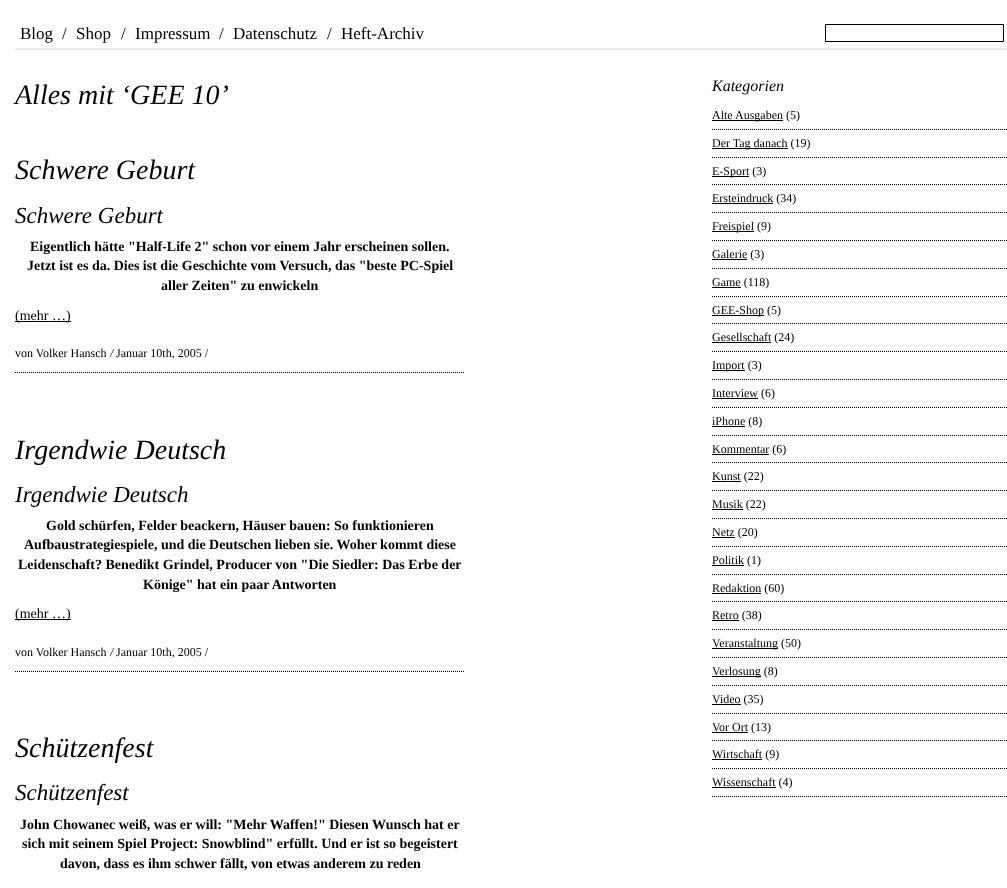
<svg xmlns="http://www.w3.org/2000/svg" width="1007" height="888">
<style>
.a{font:17px Liberation Serif;fill:#000}
.b{font:italic 28px Liberation Serif;fill:#000}
.c{font:italic 16px Liberation Serif;fill:#000}
.d{font:12px Liberation Serif;fill:#000}
.e{font:italic 23px Liberation Serif;fill:#000}
.f{font:bold 14px Liberation Serif;fill:#000}
.g{font:14px Liberation Serif;fill:#000}
.h{font:italic 12px Liberation Serif;fill:#000}
</style>
<rect width="100%" height="100%" fill="#fff"/>
<path fill="#ece9e9" d="M15 48h992v2H15z"/>
<path fill="none" stroke="#000" d="M825.5 24.5h178v17H825.5z"/>
<path fill="none" stroke="#000" stroke-dasharray="1 1" d="M712 129.5h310"/>
<path fill="#000" d="M712 120h71v1H712z"/>
<path fill="none" stroke="#000" stroke-dasharray="1 1" d="M712 157.5h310"/>
<path fill="#000" d="M712 148h76v1H712z"/>
<path fill="none" stroke="#000" stroke-dasharray="1 1" d="M712 184.5h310"/>
<path fill="#000" d="M712 176h37v1H712z"/>
<path fill="none" stroke="#000" stroke-dasharray="1 1" d="M712 212.5h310"/>
<path fill="#000" d="M712 203h61v1H712z"/>
<path fill="none" stroke="#000" stroke-dasharray="1 1" d="M712 240.5h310"/>
<path fill="#000" d="M712 231h42v1H712z"/>
<path fill="none" stroke="#000" stroke-dasharray="1 1" d="M712 268.5h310"/>
<path fill="#000" d="M712 259h35v1H712z"/>
<path fill="none" stroke="#000" stroke-dasharray="1 1" d="M712 296.5h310"/>
<path fill="#000" d="M712 287h29v1H712z"/>
<path fill="none" stroke="#000" stroke-dasharray="1 1" d="M712 323.5h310"/>
<path fill="#000" d="M712 315h52v1H712z"/>
<path fill="none" stroke="#000" stroke-dasharray="1 1" d="M712 351.5h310"/>
<path fill="#000" d="M712 342h59v1H712z"/>
<path fill="none" stroke="#000" stroke-dasharray="1 1" d="M712 379.5h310"/>
<path fill="#000" d="M712 370h33v1H712z"/>
<path fill="none" stroke="#000" stroke-dasharray="1 1" d="M712 407.5h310"/>
<path fill="#000" d="M712 398h46v1H712z"/>
<path fill="none" stroke="#000" stroke-dasharray="1 1" d="M712 435.5h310"/>
<path fill="#000" d="M712 426h33v1H712z"/>
<path fill="none" stroke="#000" stroke-dasharray="1 1" d="M712 462.5h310"/>
<path fill="#000" d="M712 454h57v1H712z"/>
<path fill="none" stroke="#000" stroke-dasharray="1 1" d="M712 490.5h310"/>
<path fill="#000" d="M712 481h29v1H712z"/>
<path fill="none" stroke="#000" stroke-dasharray="1 1" d="M712 518.5h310"/>
<path fill="#000" d="M712 509h31v1H712z"/>
<path fill="none" stroke="#000" stroke-dasharray="1 1" d="M712 546.5h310"/>
<path fill="#000" d="M712 537h23v1H712z"/>
<path fill="none" stroke="#000" stroke-dasharray="1 1" d="M712 574.5h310"/>
<path fill="#000" d="M712 565h32v1H712z"/>
<path fill="none" stroke="#000" stroke-dasharray="1 1" d="M712 601.5h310"/>
<path fill="#000" d="M712 593h49v1H712z"/>
<path fill="none" stroke="#000" stroke-dasharray="1 1" d="M712 629.5h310"/>
<path fill="#000" d="M712 620h27v1H712z"/>
<path fill="none" stroke="#000" stroke-dasharray="1 1" d="M712 657.5h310"/>
<path fill="#000" d="M712 648h66v1H712z"/>
<path fill="none" stroke="#000" stroke-dasharray="1 1" d="M712 685.5h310"/>
<path fill="#000" d="M712 676h49v1H712z"/>
<path fill="none" stroke="#000" stroke-dasharray="1 1" d="M712 713.5h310"/>
<path fill="#000" d="M712 704h29v1H712z"/>
<path fill="none" stroke="#000" stroke-dasharray="1 1" d="M712 740.5h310"/>
<path fill="#000" d="M712 732h36v1H712z"/>
<path fill="none" stroke="#000" stroke-dasharray="1 1" d="M712 768.5h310"/>
<path fill="#000" d="M712 759h50v1H712z"/>
<path fill="none" stroke="#000" stroke-dasharray="1 1" d="M712 796.5h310"/>
<path fill="#000" d="M712 787h64v1H712z"/>
<path fill="#000" d="M15 321h56v1H15z"/>
<path fill="none" stroke="#000" stroke-dasharray="1 1" d="M15 372.5h450"/>
<path fill="#000" d="M15 619h56v1H15z"/>
<path fill="none" stroke="#000" stroke-dasharray="1 1" d="M15 671.5h450"/>
<text class="a" x="20" y="39">Blog</text>
<text class="a" x="62" y="39">/</text>
<text class="a" x="76" y="39">Shop</text>
<text class="a" x="121" y="39">/</text>
<text class="a" x="135" y="39">Impressum</text>
<text class="a" x="219" y="39">/</text>
<text class="a" x="233" y="39">Datenschutz</text>
<text class="a" x="327" y="39">/</text>
<text class="a" x="341" y="39">Heft-Archiv</text>
<text class="b" x="15" y="104">Alles mit ‘GEE 10’</text>
<text class="c" x="712" y="91">Kategorien</text>
<text class="d" x="712" y="119">Alte Ausgaben (5)</text>
<text class="d" x="712" y="147">Der Tag danach (19)</text>
<text class="d" x="712" y="175">E-Sport (3)</text>
<text class="d" x="712" y="202">Ersteindruck (34)</text>
<text class="d" x="712" y="230">Freispiel (9)</text>
<text class="d" x="712" y="258">Galerie (3)</text>
<text class="d" x="712" y="286">Game (118)</text>
<text class="d" x="712" y="314">GEE-Shop (5)</text>
<text class="d" x="712" y="341">Gesellschaft (24)</text>
<text class="d" x="712" y="369">Import (3)</text>
<text class="d" x="712" y="397">Interview (6)</text>
<text class="d" x="712" y="425">iPhone (8)</text>
<text class="d" x="712" y="453">Kommentar (6)</text>
<text class="d" x="712" y="480">Kunst (22)</text>
<text class="d" x="712" y="508">Musik (22)</text>
<text class="d" x="712" y="536">Netz (20)</text>
<text class="d" x="712" y="564">Politik (1)</text>
<text class="d" x="712" y="592">Redaktion (60)</text>
<text class="d" x="712" y="619">Retro (38)</text>
<text class="d" x="712" y="647">Veranstaltung (50)</text>
<text class="d" x="712" y="675">Verlosung (8)</text>
<text class="d" x="712" y="703">Video (35)</text>
<text class="d" x="712" y="731">Vor Ort (13)</text>
<text class="d" x="712" y="758">Wirtschaft (9)</text>
<text class="d" x="712" y="786">Wissenschaft (4)</text>
<text class="b" x="15" y="179">Schwere Geburt</text>
<text class="e" x="15" y="223">Schwere Geburt</text>
<text class="f" x="30" y="251">Eigentlich hätte "Half-Life 2" schon vor einem Jahr erscheinen sollen.</text>
<text class="f" x="27" y="270">Jetzt ist es da. Dies ist die Geschichte vom Versuch, das "beste PC-Spiel</text>
<text class="f" x="161" y="290">aller Zeiten" zu enwickeln</text>
<text class="g" x="15" y="320">(mehr …)</text>
<text class="d" x="15" y="357">von Volker Hansch</text>
<text class="h" x="110" y="357">/</text>
<text class="d" x="116" y="357">Januar 10th, 2005 /</text>
<text class="b" x="15" y="459">Irgendwie Deutsch</text>
<text class="e" x="15" y="502">Irgendwie Deutsch</text>
<text class="f" x="46" y="530">Gold schürfen, Felder beackern, Häuser bauen: So funktionieren</text>
<text class="f" x="24" y="549">Aufbaustrategiespiele, und die Deutschen lieben sie. Woher kommt diese</text>
<text class="f" x="18" y="569">Leidenschaft? Benedikt Grindel, Producer von "Die Siedler: Das Erbe der</text>
<text class="f" x="143" y="589">Könige" hat ein paar Antworten</text>
<text class="g" x="15" y="618">(mehr …)</text>
<text class="d" x="15" y="656">von Volker Hansch</text>
<text class="h" x="110" y="656">/</text>
<text class="d" x="116" y="656">Januar 10th, 2005 /</text>
<text class="b" x="15" y="757">Schützenfest</text>
<text class="e" x="15" y="800">Schützenfest</text>
<text class="f" x="20" y="829">John Chowanec weiß, was er will: "Mehr Waffen!" Diesen Wunsch hat er</text>
<text class="f" x="22" y="848">sich mit seinem Spiel Project: Snowblind" erfüllt. Und er ist so begeistert</text>
<text class="f" x="60" y="868">davon, dass es ihm schwer fällt, von etwas anderem zu reden</text>
</svg>
